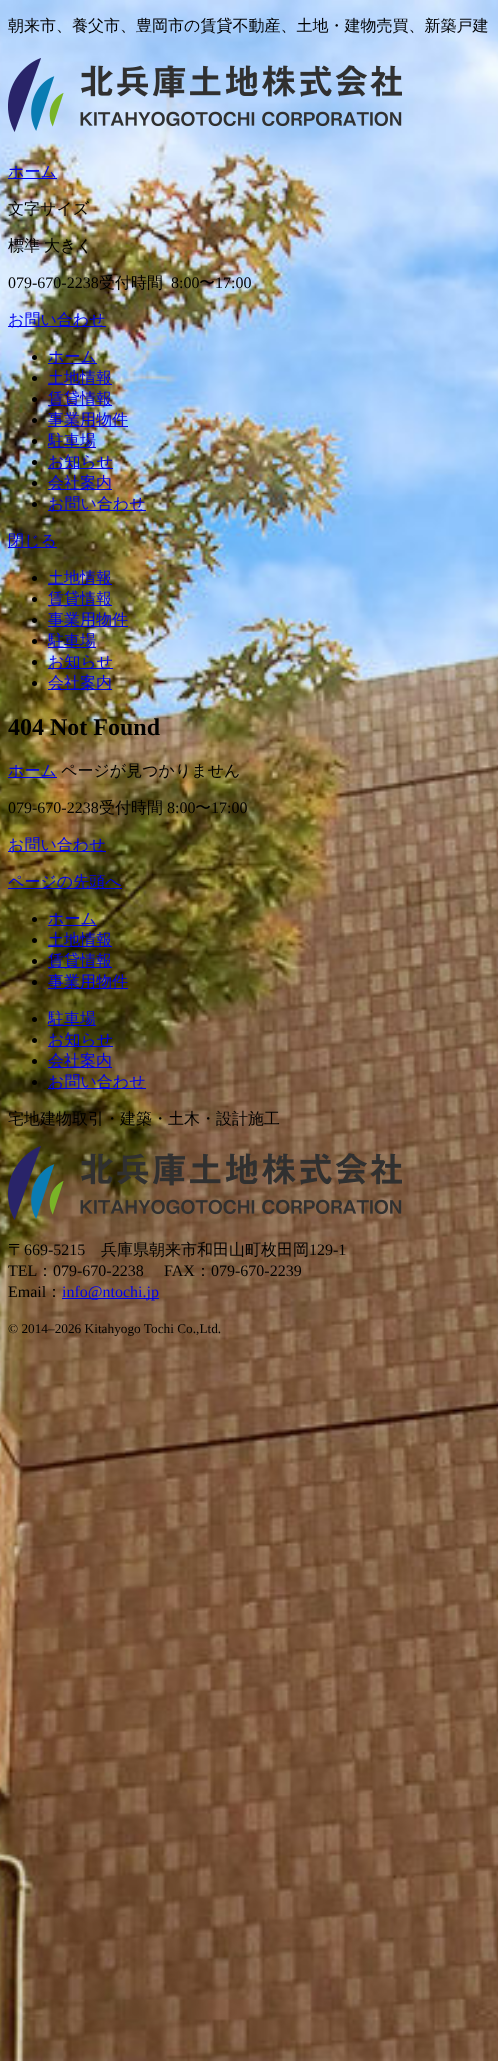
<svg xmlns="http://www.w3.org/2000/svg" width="498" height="2061">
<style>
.a{font:500 16px WenQuanYi Zen Hei;fill:#000}
.b{font:500 16px WenQuanYi Zen Hei;fill:#00e}
.c{font:16px Liberation Serif;fill:#000}
.d{font:bold 24px Liberation Serif;fill:#000}
.e{font:16px Liberation Serif;fill:#00e}
.f{font:13.3px Liberation Serif;fill:#000}
</style>
<rect width="100%" height="100%" fill="#fff"/>
<image href="1.png" x="0" y="0" width="498" height="2061"/>
<image href="2.png" x="8" y="58" width="394" height="74"/>
<path fill="#00e" d="M8 178h49v1H8z"/>
<path fill="#00e" d="M8 326h98v1H8z"/>
<circle fill="#000" cx="34.5" cy="357.5" r="2.5"/>
<path fill="#00e" d="M48 363h49v1H48z"/>
<circle fill="#000" cx="34.5" cy="378.5" r="2.5"/>
<path fill="#00e" d="M48 384h64v1H48z"/>
<circle fill="#000" cx="34.5" cy="399.5" r="2.5"/>
<path fill="#00e" d="M48 405h64v1H48z"/>
<circle fill="#000" cx="34.5" cy="420.5" r="2.5"/>
<path fill="#00e" d="M48 426h80v1H48z"/>
<circle fill="#000" cx="34.5" cy="441.5" r="2.5"/>
<path fill="#00e" d="M48 447h48v1H48z"/>
<circle fill="#000" cx="34.5" cy="462.5" r="2.5"/>
<path fill="#00e" d="M48 468h65v1H48z"/>
<circle fill="#000" cx="34.5" cy="483.5" r="2.5"/>
<path fill="#00e" d="M48 489h64v1H48z"/>
<circle fill="#000" cx="34.5" cy="504.5" r="2.5"/>
<path fill="#00e" d="M48 510h98v1H48z"/>
<path fill="#00e" d="M8 547h49v1H8z"/>
<circle fill="#000" cx="34.5" cy="578.5" r="2.5"/>
<path fill="#00e" d="M48 584h64v1H48z"/>
<circle fill="#000" cx="34.5" cy="599.5" r="2.5"/>
<path fill="#00e" d="M48 605h64v1H48z"/>
<circle fill="#000" cx="34.5" cy="620.5" r="2.5"/>
<path fill="#00e" d="M48 626h80v1H48z"/>
<circle fill="#000" cx="34.5" cy="641.5" r="2.5"/>
<path fill="#00e" d="M48 647h48v1H48z"/>
<circle fill="#000" cx="34.5" cy="662.5" r="2.5"/>
<path fill="#00e" d="M48 668h65v1H48z"/>
<circle fill="#000" cx="34.5" cy="683.5" r="2.5"/>
<path fill="#00e" d="M48 689h64v1H48z"/>
<path fill="#00e" d="M8 777h49v1H8z"/>
<path fill="#00e" d="M8 851h98v1H8z"/>
<path fill="#00e" d="M8 888h114v1H8z"/>
<circle fill="#000" cx="34.5" cy="919.5" r="2.5"/>
<path fill="#00e" d="M48 925h49v1H48z"/>
<circle fill="#000" cx="34.5" cy="940.5" r="2.5"/>
<path fill="#00e" d="M48 946h64v1H48z"/>
<circle fill="#000" cx="34.5" cy="961.5" r="2.5"/>
<path fill="#00e" d="M48 967h64v1H48z"/>
<circle fill="#000" cx="34.5" cy="982.5" r="2.5"/>
<path fill="#00e" d="M48 988h80v1H48z"/>
<circle fill="#000" cx="34.5" cy="1019.5" r="2.5"/>
<path fill="#00e" d="M48 1025h48v1H48z"/>
<circle fill="#000" cx="34.5" cy="1040.5" r="2.5"/>
<path fill="#00e" d="M48 1046h65v1H48z"/>
<circle fill="#000" cx="34.5" cy="1061.5" r="2.5"/>
<path fill="#00e" d="M48 1067h64v1H48z"/>
<circle fill="#000" cx="34.5" cy="1082.5" r="2.5"/>
<path fill="#00e" d="M48 1088h98v1H48z"/>
<image href="3.png" x="8" y="1146" width="394" height="74"/>
<path fill="#00e" d="M62 1298h97v1H62z"/>
<text class="a" x="8" y="31">朝来市、養父市、豊岡市の賃貸不動産、土地・建物売買、新築戸建</text>
<text class="b" x="8" y="177">ホーム</text>
<text class="a" x="8" y="214">文字サイズ</text>
<text class="a" x="8" y="251">標準</text>
<text class="a" x="44" y="251">大きく</text>
<text class="c" x="8" y="288">079-670-2238</text>
<text class="a" x="99" y="288">受付時間</text>
<text class="c" x="171" y="288">8:00</text>
<text class="a" x="199" y="288">〜</text>
<text class="c" x="215" y="288">17:00</text>
<text class="b" x="8" y="325">お問い合わせ</text>
<text class="b" x="48" y="362">ホーム</text>
<text class="b" x="48" y="383">土地情報</text>
<text class="b" x="48" y="404">賃貸情報</text>
<text class="b" x="48" y="425">事業用物件</text>
<text class="b" x="48" y="446">駐車場</text>
<text class="b" x="48" y="467">お知らせ</text>
<text class="b" x="48" y="488">会社案内</text>
<text class="b" x="48" y="509">お問い合わせ</text>
<text class="b" x="8" y="546">閉じる</text>
<text class="b" x="48" y="583">土地情報</text>
<text class="b" x="48" y="604">賃貸情報</text>
<text class="b" x="48" y="625">事業用物件</text>
<text class="b" x="48" y="646">駐車場</text>
<text class="b" x="48" y="667">お知らせ</text>
<text class="b" x="48" y="688">会社案内</text>
<text class="d" x="8" y="735">404 Not Found</text>
<text class="b" x="8" y="776">ホーム</text>
<text class="a" x="61" y="776">ページが見つかりません</text>
<text class="c" x="8" y="813">079-670-2238</text>
<text class="a" x="99" y="813">受付時間</text>
<text class="c" x="167" y="813">8:00</text>
<text class="a" x="195" y="813">〜</text>
<text class="c" x="211" y="813">17:00</text>
<text class="b" x="8" y="850">お問い合わせ</text>
<text class="b" x="8" y="887">ページの先頭へ</text>
<text class="b" x="48" y="924">ホーム</text>
<text class="b" x="48" y="945">土地情報</text>
<text class="b" x="48" y="966">賃貸情報</text>
<text class="b" x="48" y="987">事業用物件</text>
<text class="b" x="48" y="1024">駐車場</text>
<text class="b" x="48" y="1045">お知らせ</text>
<text class="b" x="48" y="1066">会社案内</text>
<text class="b" x="48" y="1087">お問い合わせ</text>
<text class="a" x="8" y="1124">宅地建物取引・建築・土木・設計施工</text>
<text class="a" x="8" y="1255">〒</text>
<text class="c" x="24" y="1255">669-5215</text>
<text class="a" x="101" y="1255">兵庫県朝来市和田山町枚田岡</text>
<text class="c" x="309" y="1255">129-1</text>
<text class="c" x="8" y="1276">TEL</text>
<text class="a" x="37" y="1276">：</text>
<text class="c" x="53" y="1276">079-670-2238</text>
<text class="c" x="164" y="1276">FAX</text>
<text class="a" x="195" y="1276">：</text>
<text class="c" x="211" y="1276">079-670-2239</text>
<text class="c" x="8" y="1297">Email</text>
<text class="a" x="46" y="1297">：</text>
<text class="e" x="62" y="1297">info@ntochi.jp</text>
<text class="f" x="8" y="1333">© 2014–2026 Kitahyogo Tochi Co.,Ltd.</text>
</svg>
